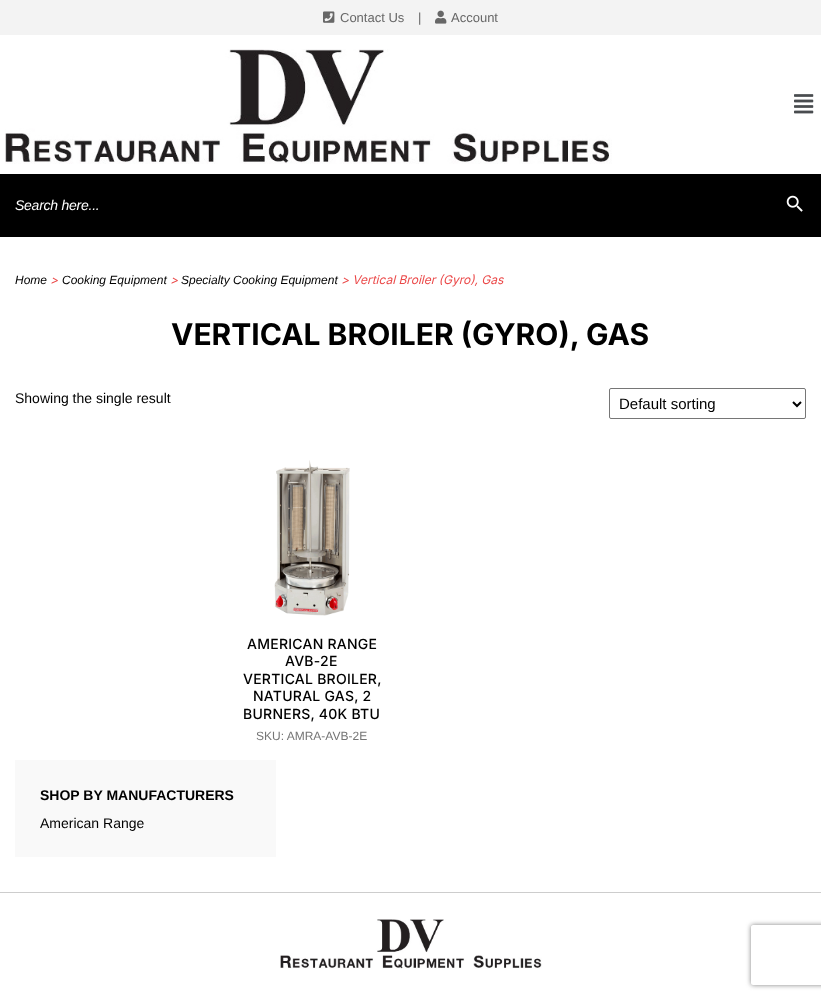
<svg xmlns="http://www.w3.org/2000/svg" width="821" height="999">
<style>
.a{font:13px Liberation Sans;fill:#676767}
.b{font:italic 14px Liberation Sans;letter-spacing:-0.25px;fill:#fff}
.c{font:italic 12px Liberation Sans;fill:#000}
.d{font:italic 12px Inter;fill:#eb4949}
.e{font:bold 30px Inter;fill:#000}
.f{font:14px Liberation Sans;fill:#000}
.g{font:15px Liberation Sans;fill:#000}
.h{font:500 14px Inter;letter-spacing:0.25px;fill:#000}
.i{font:12px Liberation Sans;fill:#757575}
.j{font:bold 14px Liberation Sans;fill:#000}
</style>
<defs>
<clipPath id="clip1"><path d="M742 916h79v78h-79zm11 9h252c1 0 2 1 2 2v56c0 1-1 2-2 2h-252c-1 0-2-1-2-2v-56c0-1 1-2 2-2z" clip-rule="evenodd"/></clipPath>
</defs>
<rect width="100%" height="100%" fill="#fff"/>
<path fill="#f3f3f3" d="M0 0h821v35H0z"/>
<image href="1.png" x="323" y="11" width="12" height="12"/>
<image href="2.png" x="435" y="10" width="12" height="14"/>
<image href="3.png" x="5" y="49" width="607" height="115"/>
<image href="4.png" x="794" y="94" width="20" height="20"/>
<path fill="#000" d="M0 174h821v63H0z"/>
<image href="5.png" x="786" y="195" width="17" height="17"/>
<rect fill="none" stroke="#767676" x="609.5" y="388.5" width="196" height="30" rx="1.5"/>
<path fill="none" stroke="#000" stroke-width="2" d="M793 402l4 4l4-4"/>
<image href="6.png" x="274" y="460" width="76" height="156"/>
<path fill="#f9f9f9" d="M15 760h261v97H15z"/>
<path fill="#cdcdcd" d="M0 892h821v1H0z"/>
<image href="7.png" x="280" y="919" width="262" height="50"/>
<g clip-path="url(#clip1)">
<rect fill="#808080" filter="blur(2.5px)" x="751" y="925" width="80" height="60" rx="2"/>
</g>
<text class="a" x="340" y="22">Contact Us</text>
<text class="a" x="418" y="22">|</text>
<text class="a" x="451" y="22">Account</text>
<text class="b" x="15" y="210">Search here...</text>
<text class="c" x="15" y="284">Home</text>
<text class="d" x="50" y="284">&gt;</text>
<text class="c" x="62" y="284">Cooking Equipment</text>
<text class="d" x="170" y="284">&gt;</text>
<text class="c" x="181" y="284">Specialty Cooking Equipment</text>
<text class="d" x="341" y="284">&gt; Vertical Broiler (Gyro), Gas</text>
<text class="e" x="171" y="345">VERTICAL BROILER (GYRO), GAS</text>
<text class="f" x="15" y="403">Showing the single result</text>
<text class="g" x="619" y="409">Default sorting</text>
<text class="h" x="247" y="649">AMERICAN RANGE</text>
<text class="h" x="285" y="666">AVB-2E</text>
<text class="h" x="243" y="684">VERTICAL BROILER,</text>
<text class="h" x="253" y="701">NATURAL GAS, 2</text>
<text class="h" x="243" y="719">BURNERS, 40K BTU</text>
<text class="i" x="256" y="740">SKU: AMRA-AVB-2E</text>
<text class="j" x="40" y="800">SHOP BY MANUFACTURERS</text>
<text class="f" x="40" y="828">American Range</text>
</svg>
